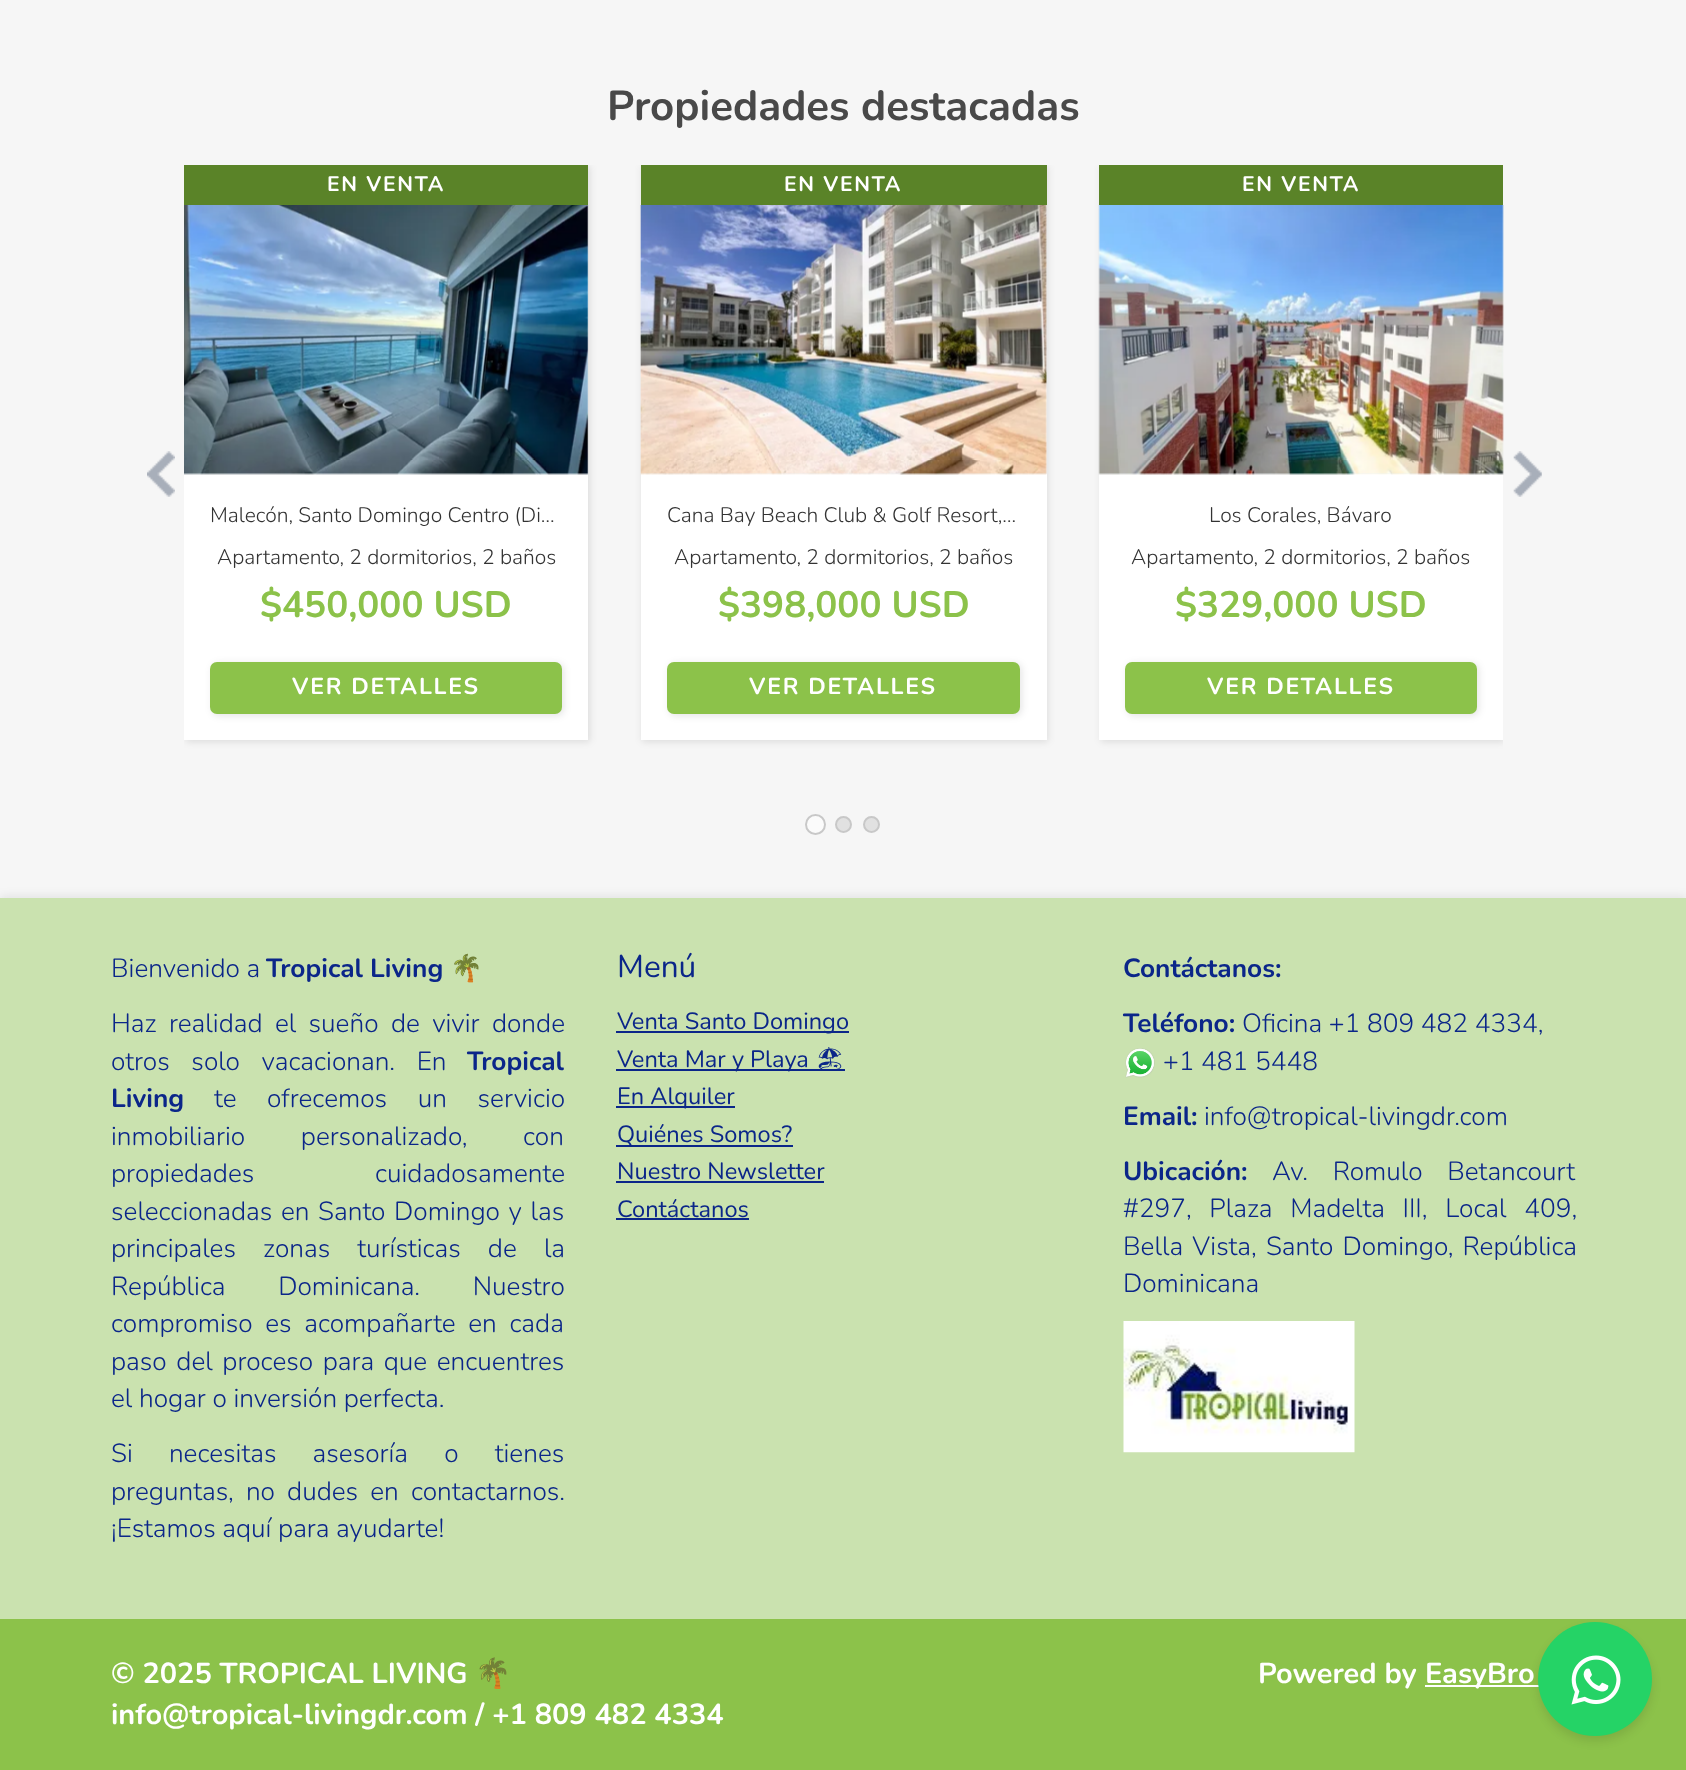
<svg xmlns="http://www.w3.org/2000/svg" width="1686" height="1770">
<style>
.a{font:bold 42px Nunito;fill:#494949}
.b{font:bold 21px Nunito;letter-spacing:1.75px;fill:#fff}
.c{font:300 21px Nunito;fill:#333}
.d{font:bold 36.75px Nunito;fill:#8cc24a}
.e{font:bold 23px Nunito;letter-spacing:1.75px;fill:#fff}
.f{font:300 26.25px Nunito;fill:#0b2689}
.g{font:bold 26.25px Nunito;fill:#0b2689}
.h{font:26.25px Noto Color Emoji;fill:#0b2689}
.i{font:31.5px Nunito;fill:#0b2689}
.j{font:23.6px Nunito;fill:#0b2689}
.k{font:23.6px Noto Emoji;fill:#0b2689}
.l{font:bold 28.9px Nunito;fill:#fff}
.m{font:bold 28.9px Noto Color Emoji;fill:#fff}
</style>
<defs>
<clipPath id="clip1"><path d="M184 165h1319v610H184z"/></clipPath>
</defs>
<rect width="100%" height="100%" fill="#f6f6f6"/>
<g clip-path="url(#clip1)">
<path fill="#0000001a" filter="blur(3.5px)" d="M186 166h404v576H186z"/>
</g>
<image href="1.png" x="147" y="451" width="28" height="46"/>
<path fill="#fff" d="M184 474h404v266H184z"/>
<path fill="#5a8328" d="M184 165h404v40H184z"/>
<path fill="#f0f3f6" d="M184 205h404v269H184z"/>
<image href="2.png" x="184" y="205" width="405" height="270"/>
<rect fill="#0000001a" filter="blur(3.5px)" x="212" y="663" width="352" height="53" rx="7"/>
<rect fill="#8cc24a" x="210" y="662" width="352" height="52" rx="7"/>
<g clip-path="url(#clip1)">
<path fill="#0000001a" filter="blur(3.5px)" d="M642 166h406v576H642z"/>
</g>
<path fill="#fff" d="M641 474h406v266H641z"/>
<path fill="#5a8328" d="M641 165h406v40H641z"/>
<path fill="#f0f3f6" d="M641 205h406v269H641z"/>
<image href="3.png" x="640" y="205" width="407" height="270"/>
<rect fill="#0000001a" filter="blur(3.5px)" x="669" y="663" width="353" height="53" rx="7"/>
<rect fill="#8cc24a" x="667" y="662" width="353" height="52" rx="7"/>
<g clip-path="url(#clip1)">
<path fill="#0000001a" filter="blur(3.5px)" d="M1101 166h404v576H1101z"/>
</g>
<path fill="#fff" d="M1099 474h404v266H1099z"/>
<path fill="#5a8328" d="M1099 165h404v40H1099z"/>
<path fill="#f0f3f6" d="M1099 205h404v269H1099z"/>
<image href="4.png" x="1098" y="205" width="406" height="270"/>
<rect fill="#0000001a" filter="blur(3.5px)" x="1127" y="663" width="352" height="53" rx="7"/>
<rect fill="#8cc24a" x="1125" y="662" width="352" height="52" rx="7"/>
<image href="5.png" x="1513" y="451" width="29" height="46"/>
<circle fill="#fbfbfb" stroke="#c8c8c8" stroke-width="2" cx="815.5" cy="824.5" r="9.5"/>
<circle fill="#e1e1e1" stroke="#c8c8c8" stroke-width="2" cx="843.5" cy="824.5" r="7.5"/>
<circle fill="#e1e1e1" stroke="#c8c8c8" stroke-width="2" cx="871.5" cy="824.5" r="7.5"/>
<path fill="#00000014" filter="blur(5px)" d="M0 896h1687v721H0z"/>
<path fill="#cae2af" d="M0 898h1686v721H0z"/>
<path fill="#0b2689" d="M616 1031h233v2H616z"/>
<path fill="#0b2689" d="M616 1069h229v2H616z"/>
<path fill="#0b2689" d="M616 1106h119v2H616z"/>
<path fill="#0b2689" d="M616 1145h177v2H616z"/>
<path fill="#0b2689" d="M616 1181h208v2H616z"/>
<path fill="#0b2689" d="M616 1218h133v2H616z"/>
<image href="6.png" x="1125" y="1048" width="30" height="30"/>
<image href="7.png" x="1123" y="1321" width="232" height="132"/>
<path fill="#8cc24a" d="M0 1619h1686v151H0z"/>
<path fill="#fff" d="M1425 1685h114v2H1425z"/>
<rect fill="#0000001a" filter="blur(5px)" x="1538" y="1628" width="114" height="113" rx="56.5"/>
<circle fill="#25d366" cx="1595" cy="1679" r="57"/>
<image href="8.png" x="1571" y="1655" width="50" height="50"/>
<text class="a" x="607" y="120">Propiedades destacadas</text>
<text class="b" x="327" y="191">EN VENTA</text>
<text class="c" x="210" y="522">Malecón, Santo Domingo Centro (Di…</text>
<text class="c" x="217" y="564">Apartamento, 2 dormitorios, 2 baños</text>
<text class="d" x="260" y="617">$450,000 USD</text>
<text class="e" x="292" y="694">VER DETALLES</text>
<text class="b" x="784" y="191">EN VENTA</text>
<text class="c" x="667" y="522">Cana Bay Beach Club &amp; Golf Resort,…</text>
<text class="c" x="674" y="564">Apartamento, 2 dormitorios, 2 baños</text>
<text class="d" x="718" y="617">$398,000 USD</text>
<text class="e" x="749" y="694">VER DETALLES</text>
<text class="b" x="1242" y="191">EN VENTA</text>
<text class="c" x="1209" y="522">Los Corales, Bávaro</text>
<text class="c" x="1131" y="564">Apartamento, 2 dormitorios, 2 baños</text>
<text class="d" x="1175" y="617">$329,000 USD</text>
<text class="e" x="1207" y="694">VER DETALLES</text>
<text class="f" x="111" y="977">Bienvenido a</text>
<text class="g" x="266" y="977">Tropical Living</text>
<text class="h" x="450" y="977">🌴</text>
<text class="f" x="111" y="1032" word-spacing="5.75">Haz realidad el sueño de vivir donde</text>
<text class="f" x="111" y="1070" word-spacing="15">otros solo vacacionan. En</text>
<text class="g" x="467" y="1070">Tropical</text>
<text class="g" x="111" y="1107">Living</text>
<text class="f" x="214" y="1107" word-spacing="24">te ofrecemos un servicio</text>
<text class="f" x="111" y="1145" word-spacing="49">inmobiliario personalizado, con</text>
<text class="f" x="111" y="1182" word-spacing="114">propiedades cuidadosamente</text>
<text class="f" x="111" y="1220" word-spacing="2">seleccionadas en Santo Domingo y las</text>
<text class="f" x="111" y="1257" word-spacing="20.5">principales zonas turísticas de la</text>
<text class="f" x="111" y="1295" word-spacing="46">República Dominicana. Nuestro</text>
<text class="f" x="111" y="1332" word-spacing="6">compromiso es acompañarte en cada</text>
<text class="f" x="111" y="1370" word-spacing="3">paso del proceso para que encuentres</text>
<text class="f" x="111" y="1407">el hogar o inversión perfecta.</text>
<text class="f" x="111" y="1462" word-spacing="29.5">Si necesitas asesoría o tienes</text>
<text class="f" x="111" y="1500" word-spacing="5.5">preguntas, no dudes en contactarnos.</text>
<text class="f" x="111" y="1537">¡Estamos aquí para ayudarte!</text>
<text class="i" x="617" y="977">Menú</text>
<text class="j" x="617" y="1029">Venta Santo Domingo</text>
<text class="j" x="617" y="1067">Venta Mar y Playa</text>
<text class="k" x="815" y="1067">🏖</text>
<text class="j" x="617" y="1104">En Alquiler</text>
<text class="j" x="617" y="1142">Quiénes Somos?</text>
<text class="j" x="617" y="1179">Nuestro Newsletter</text>
<text class="j" x="617" y="1217">Contáctanos</text>
<text class="g" x="1123" y="977">Contáctanos:</text>
<text class="g" x="1123" y="1032">Teléfono:</text>
<text class="f" x="1242" y="1032">Oficina +1 809 482 4334,</text>
<text class="f" x="1163" y="1070">+1 481 5448</text>
<text class="g" x="1123" y="1125">Email:</text>
<text class="f" x="1204" y="1125">info@tropical-livingdr.com</text>
<text class="g" x="1123" y="1180">Ubicación:</text>
<text class="f" x="1272" y="1180" word-spacing="18">Av. Romulo Betancourt</text>
<text class="f" x="1123" y="1217" word-spacing="11">#297, Plaza Madelta III, Local 409,</text>
<text class="f" x="1123" y="1255" word-spacing="2.5">Bella Vista, Santo Domingo, República</text>
<text class="f" x="1123" y="1292">Dominicana</text>
<text class="l" x="111" y="1683">© 2025 TROPICAL LIVING</text>
<text class="m" x="475" y="1683">🌴</text>
<text class="l" x="111" y="1724">info@tropical-livingdr.com / +1 809 482 4334</text>
<text class="l" x="1258" y="1683">Powered by</text>
<text class="l" x="1425" y="1683">EasyBro</text>
</svg>
